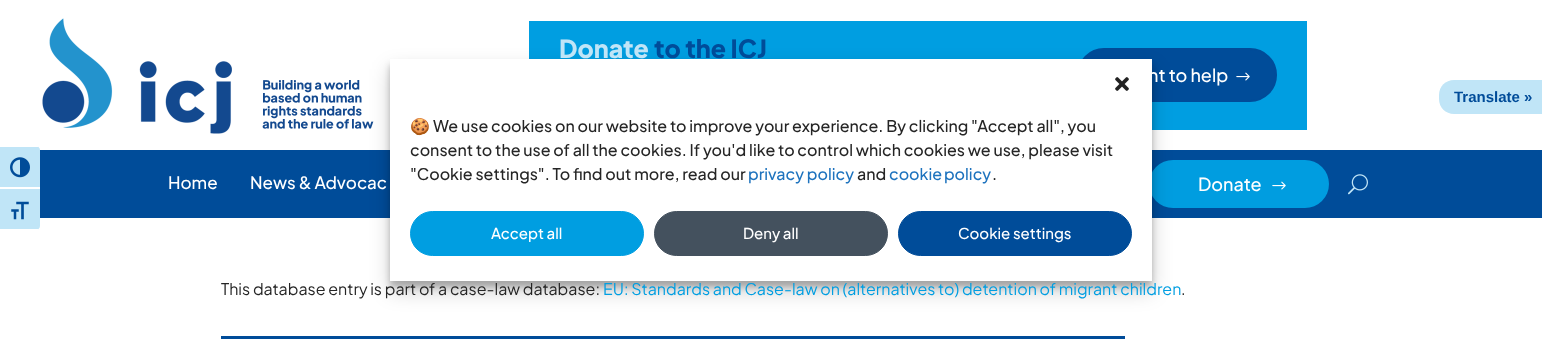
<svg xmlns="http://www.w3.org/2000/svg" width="1542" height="339">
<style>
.a{font:800 25px Plus Jakarta Sans;fill:#c0e5f7}
.b{font:800 25px Plus Jakarta Sans;fill:#004c99}
.c{font:500 18px Plus Jakarta Sans;fill:#fff}
.d{font:500 17px Plus Jakarta Sans;fill:#fff}
.e{font:16px Plus Jakarta Sans;fill:#252525}
.f{font:16px Plus Jakarta Sans;fill:#009ee1}
.g{font:bold 15px Liberation Sans;fill:#004c99}
.h{font:16px Noto Color Emoji;fill:#252525}
.i{font:500 16px Plus Jakarta Sans;fill:#252525}
.j{font:500 16px Plus Jakarta Sans;fill:#1e73be}
.k{font:500 15px Plus Jakarta Sans;fill:#fff}
</style>
<rect width="100%" height="100%" fill="#fff"/>
<image href="1.png" x="42" y="18" width="332" height="116"/>
<path fill="#009ee1" d="M529 21h778v109H529z"/>
<rect fill="#004c99" stroke="#004c99" stroke-width="2" x="1078" y="49" width="198" height="52" rx="26"/>
<image href="2.png" x="1236" y="72" width="14" height="9"/>
<path fill="#004c99" d="M40 150h1502v68H40z"/>
<rect fill="#009de0" x="1149" y="160" width="180" height="48" rx="24"/>
<image href="3.png" x="1272" y="181" width="14" height="9"/>
<image href="4.png" x="1348" y="174" width="20" height="21"/>
<path fill="#004c99" d="M221 336h904v3H221z"/>
<path fill="#c0e5f7" d="M1454 80h88v34h-88c-8.5 0-15-6.5-15-15v-4c0-8.5 6.5-15 15-15z"/>
<path fill="#c0e5f7" d="M0 146h36c2 0 4 2 4 4v38h-40z"/>
<path fill="#fff" d="M0 146h38v1H0z"/>
<path fill="#fff" d="M0 187h40v1H0z"/>
<image href="5.png" x="10" y="157" width="20" height="21"/>
<path fill="#c0e5f7" d="M0 188h40v38c0 2-2 4-4 4h-36z"/>
<path fill="#fff" d="M0 188h40v1H0z"/>
<path fill="#fff" d="M0 229h38v1H0z"/>
<image href="6.png" x="11" y="201" width="18" height="19"/>
<path fill="#0000003b" filter="blur(3px)" d="M390 65h762v222H390z"/>
<path fill="#00000030" filter="blur(10px)" d="M390 69h762v222H390z"/>
<path fill="#fff" d="M390 59h762v222H390z"/>
<image href="7.png" x="1115" y="77" width="14" height="14"/>
<rect fill="#009ee1" stroke="#009ee1" x="410.5" y="211.5" width="233" height="44" rx="22"/>
<rect fill="#44515e" stroke="#44515e" x="654.5" y="211.5" width="233" height="44" rx="22"/>
<rect fill="#004c99" stroke="#004c99" x="898.5" y="211.5" width="233" height="44" rx="22"/>
<text class="a" x="559" y="58">Donate</text>
<text class="b" x="654" y="58">to the ICJ</text>
<text class="c" x="1148" y="82">nt to help</text>
<text class="d" x="168" y="189">Home</text>
<text class="d" x="250" y="189">News &amp; Advocac</text>
<text class="c" x="1198" y="191">Donate</text>
<text class="e" x="221" y="295">This database entry is part of a case-law database:</text>
<text class="f" x="603" y="295">EU: Standards and Case-law on (alternatives to) detention of migrant children</text>
<text class="e" x="1181" y="295">.</text>
<text class="g" x="1454" y="102">Translate »</text>
<text class="h" x="410" y="132">🍪</text>
<text class="i" x="433" y="132">We use cookies on our website to improve your experience. By clicking "Accept all", you</text>
<text class="i" x="410" y="156">consent to the use of all the cookies. If you'd like to control which cookies we use, please visit</text>
<text class="i" x="410" y="180">"Cookie settings". To find out more, read our</text>
<text class="j" x="748" y="180">privacy policy</text>
<text class="i" x="857" y="180">and</text>
<text class="j" x="889" y="180" word-spacing="-1">cookie policy</text>
<text class="i" x="992" y="180">.</text>
<text class="k" x="491" y="239">Accept all</text>
<text class="k" x="743" y="239">Deny all</text>
<text class="k" x="958" y="239">Cookie settings</text>
</svg>
